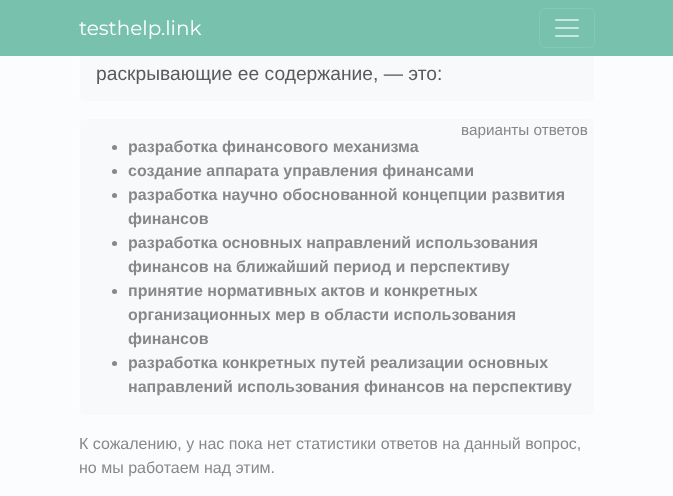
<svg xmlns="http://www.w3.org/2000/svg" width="673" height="496">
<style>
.a{font:20px Montserrat;fill:#fff}
.b{font:19.25px Liberation Sans;fill:#5a5a5a}
.c{font:15.25px Liberation Sans;fill:#888}
.d{font:bold 16px Liberation Sans;fill:#888}
.e{font:16px Liberation Sans;fill:#888}
</style>
<rect width="100%" height="100%" fill="#fbfcfd"/>
<rect fill="#f8f9fa" stroke="#fdfdfe" x="79.5" y="22.5" width="515" height="79" rx="5.5"/>
<path fill="#78c2ad" d="M0 0h673v56H0z"/>
<rect fill="none" stroke="#86c8b5" x="539.5" y="8.5" width="55" height="39" rx="5.5"/>
<image href="1.png" x="555" y="19" width="24" height="18"/>
<rect fill="#f8f9fa" stroke="#fdfdfe" x="79.5" y="118.5" width="515" height="297" rx="5.5"/>
<circle fill="#888" cx="114.5" cy="147.5" r="2.5"/>
<circle fill="#888" cx="114.5" cy="171.5" r="2.5"/>
<circle fill="#888" cx="114.5" cy="195.5" r="2.5"/>
<circle fill="#888" cx="114.5" cy="243.5" r="2.5"/>
<circle fill="#888" cx="114.5" cy="291.5" r="2.5"/>
<circle fill="#888" cx="114.5" cy="363.5" r="2.5"/>
<text class="a" x="79" y="35">testhelp.link</text>
<text class="b" x="96" y="80">раскрывающие ее содержание, — это:</text>
<text class="c" x="461" y="135">варианты ответов</text>
<text class="d" x="128" y="152">разработка финансового механизма</text>
<text class="d" x="128" y="176">создание аппарата управления финансами</text>
<text class="d" x="128" y="200">разработка научно обоснованной концепции развития</text>
<text class="d" x="128" y="224">финансов</text>
<text class="d" x="128" y="248">разработка основных направлений использования</text>
<text class="d" x="128" y="272">финансов на ближайший период и перспективу</text>
<text class="d" x="128" y="296">принятие нормативных актов и конкретных</text>
<text class="d" x="128" y="320">организационных мер в области использования</text>
<text class="d" x="128" y="344">финансов</text>
<text class="d" x="128" y="368">разработка конкретных путей реализации основных</text>
<text class="d" x="128" y="392">направлений использования финансов на перспективу</text>
<text class="e" x="79" y="449">К сожалению, у нас пока нет статистики ответов на данный вопрос,</text>
<text class="e" x="79" y="473">но мы работаем над этим.</text>
</svg>
